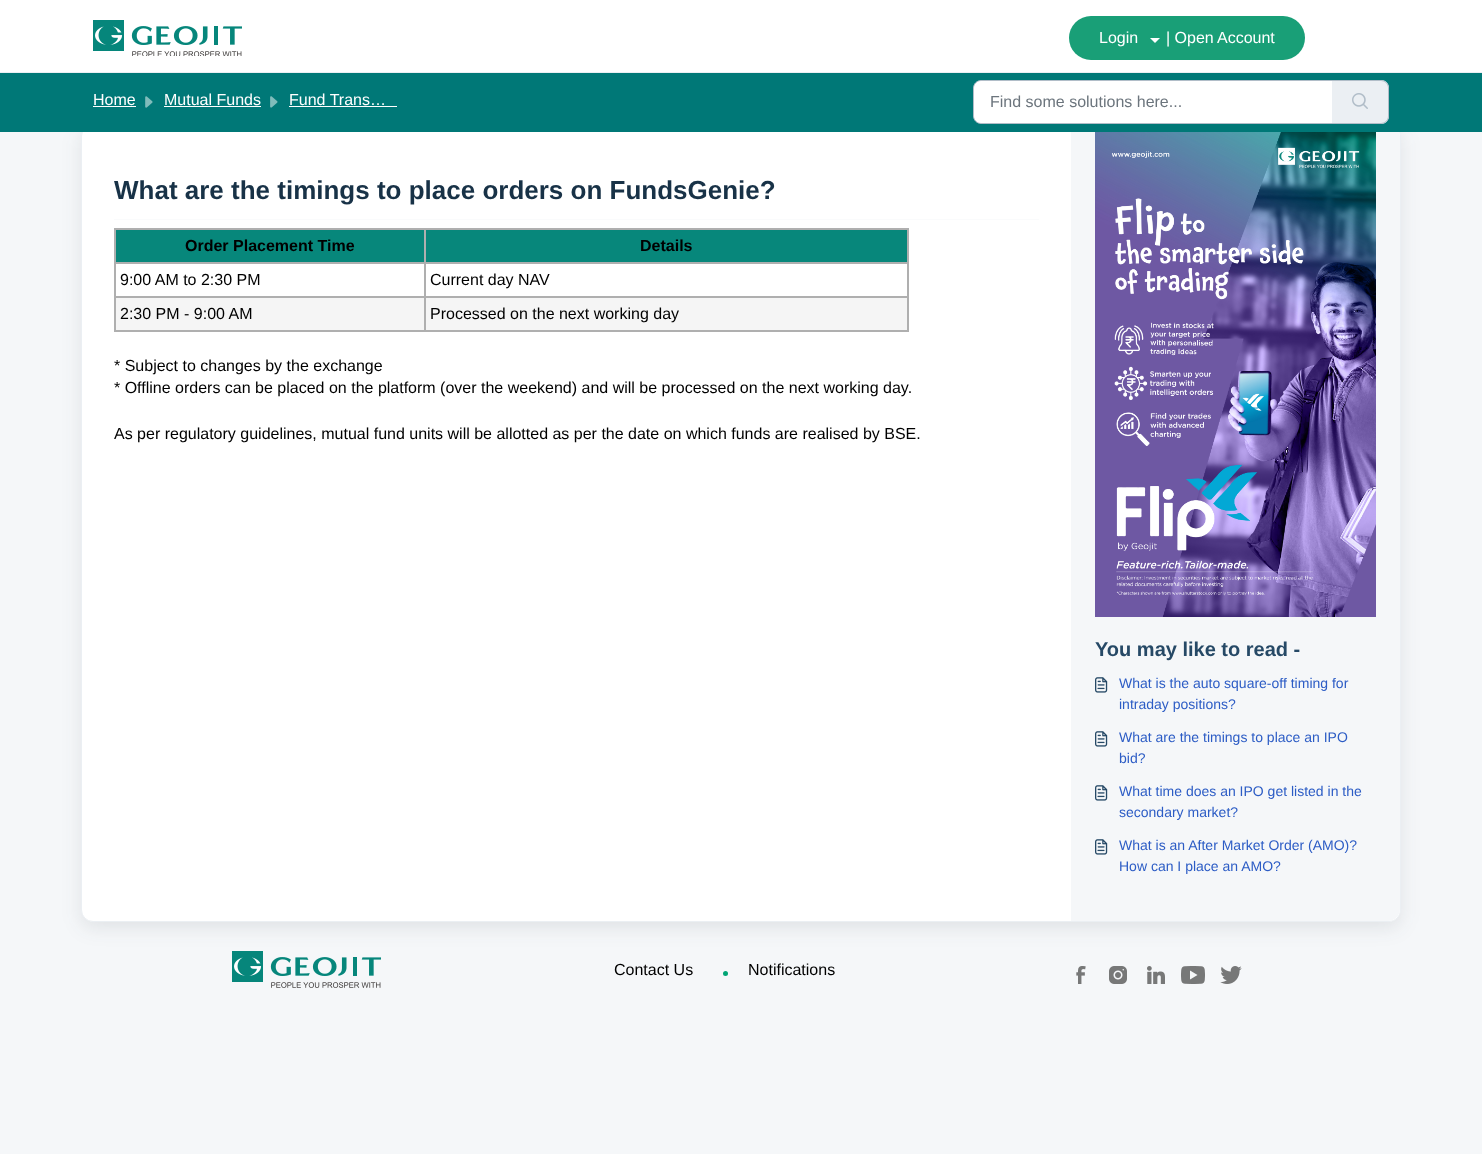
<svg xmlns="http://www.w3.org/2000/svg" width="1482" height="1154">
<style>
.a{font:16px Liberation Sans;fill:#fff}
.b{font:16px Liberation Sans;fill:#6c757d}
.c{font:bold 26px Liberation Sans;fill:#183247}
.d{font:bold 16px Liberation Sans;fill:#000}
.e{font:16px Liberation Sans;fill:#000}
.f{font:bold 20px Liberation Sans;fill:#264966}
.g{font:14px Liberation Sans;fill:#2c5cc5}
</style>
<rect width="100%" height="100%" fill="#f5f7f9"/>
<path fill="#fff" d="M0 0h1482v72H0z"/>
<path fill="#ebeff3" d="M0 72h1482v1H0z"/>
<image href="1.png" x="93" y="20" width="149" height="36"/>
<rect fill="#199f77" x="1069" y="16" width="236" height="44" rx="22"/>
<path fill="#fff" d="M1150 38h10l-5 5z"/>
<rect fill="#27313a1a" filter="blur(9.5px)" x="81" y="130" width="1320" height="798" rx="12"/>
<rect fill="#fff" stroke="#ebeff3" x="81.5" y="124.5" width="1319" height="797" rx="11.5"/>
<path fill="#f5f7f9" d="M1071 125h317c6.5 0 12 5.5 12 12v772c0 6.5-5.5 12-12 12h-317z"/>
<path fill="#007877" d="M0 73h1482v59H0z"/>
<path fill="#fff" d="M93 106h43v1H93z"/>
<image href="2.png" x="145" y="96" width="8" height="12"/>
<path fill="#fff" d="M164 106h97v1H164z"/>
<image href="3.png" x="270" y="96" width="8" height="12"/>
<path fill="#fff" d="M289 106h108v1H289z"/>
<path fill="#fff" stroke="#b1bdc8" d="M981 80.5h351.5v43h-351.5c-4 0-7.5-3.5-7.5-7.5v-28c0-4 3.5-7.5 7.5-7.5z"/>
<path fill="#ebeff3" d="M1332 80h49c4.5 0 8 3.5 8 8v28c0 4.5-3.5 8-8 8h-49z"/>
<path fill="#b1bdc8" fill-rule="evenodd" d="M1332 80h49c4 0 8 4 8 8v28c0 4-4 8-8 8h-49zm0 1h49c4 0 7 3 7 7v28c0 4-3 7-7 7h-49z"/>
<image href="4.png" x="1352" y="93" width="16" height="16"/>
<path fill="#fafbfc" d="M114 219h925v1H114z"/>
<path fill="#07877b" d="M116 230h308v32H116z"/>
<path fill="#afafaf" d="M424 228h485v2H424z"/>
<path fill="#afafaf" d="M424 262h485v2H424z"/>
<path fill="#afafaf" d="M424 296h485v2H424z"/>
<path fill="#f5f5f5" d="M116 298h791v32H116z"/>
<path fill="#afafaf" d="M907 296h2v36H907z"/>
<path fill="#afafaf" d="M424 330h485v2H424z"/>
<path fill="#afafaf" d="M424 296h2v36H424z"/>
<path fill="#afafaf" d="M114 296h312v2H114z"/>
<path fill="#afafaf" d="M424 262h2v36H424z"/>
<path fill="#afafaf" d="M114 262h312v2H114z"/>
<path fill="#afafaf" d="M424 228h2v36H424z"/>
<path fill="#afafaf" d="M114 228h312v2H114z"/>
<path fill="#afafaf" d="M114 330h312v2H114z"/>
<path fill="#afafaf" d="M114 296h2v36H114z"/>
<path fill="#afafaf" d="M114 262h2v36H114z"/>
<path fill="#afafaf" d="M114 228h2v36H114z"/>
<path fill="#07877b" d="M426 230h481v32H426z"/>
<path fill="#afafaf" d="M907 262h2v36H907z"/>
<path fill="#afafaf" d="M907 228h2v36H907z"/>
<image href="5.png" x="1095" y="132" width="281" height="485"/>
<image href="6.png" x="1095" y="677" width="13" height="16"/>
<image href="6.png" x="1095" y="731" width="13" height="16"/>
<image href="6.png" x="1095" y="785" width="13" height="16"/>
<image href="6.png" x="1095" y="839" width="13" height="16"/>
<image href="7.png" x="232" y="951" width="149" height="37"/>
<circle fill="#00a575" cx="725.5" cy="973.5" r="2.5"/>
<image href="8.png" x="1076" y="966" width="10" height="18"/>
<image href="9.png" x="1109" y="966" width="18" height="18"/>
<image href="10.png" x="1147" y="966" width="18" height="18"/>
<image href="11.png" x="1181" y="966" width="24" height="18"/>
<image href="12.png" x="1220" y="966" width="22" height="18"/>
<text class="a" x="1099" y="43">Login</text>
<text class="a" x="1166" y="43">| Open</text>
<text class="a" x="1217" y="43">Account</text>
<text class="a" x="93" y="105">Home</text>
<text class="a" x="164" y="105">Mutual Funds</text>
<text class="a" x="289" y="105">Fund Trans…</text>
<text class="b" x="990" y="107">Find some solutions here...</text>
<text class="c" x="114" y="199">What are the timings to place orders on FundsGenie?</text>
<text class="d" x="185" y="251">Order Placement Time</text>
<text class="d" x="640" y="251">Details</text>
<text class="e" x="120" y="285">9:00 AM to 2:30 PM</text>
<text class="e" x="430" y="285">Current day NAV</text>
<text class="e" x="120" y="319">2:30 PM - 9:00 AM</text>
<text class="e" x="430" y="319">Processed on the next working day</text>
<text class="e" x="114" y="371">* Subject to changes by the exchange</text>
<text class="e" x="114" y="393">* Offline orders can be placed on the platform (over the weekend) and will be processed on the next working day.</text>
<text class="e" x="114" y="439">As per regulatory guidelines, mutual fund units will be allotted as per the date on which funds are realised by BSE.</text>
<text class="f" x="1095" y="656">You may like to read -</text>
<text class="g" x="1119" y="688">What is the auto square-off timing for</text>
<text class="g" x="1119" y="709">intraday positions?</text>
<text class="g" x="1119" y="742">What are the timings to place an IPO</text>
<text class="g" x="1119" y="763">bid?</text>
<text class="g" x="1119" y="796">What time does an IPO get listed in the</text>
<text class="g" x="1119" y="817">secondary market?</text>
<text class="g" x="1119" y="850">What is an After Market Order (AMO)?</text>
<text class="g" x="1119" y="871">How can I place an AMO?</text>
<text class="e" x="614" y="975">Contact Us</text>
<text class="e" x="748" y="975">Notifications</text>
</svg>
